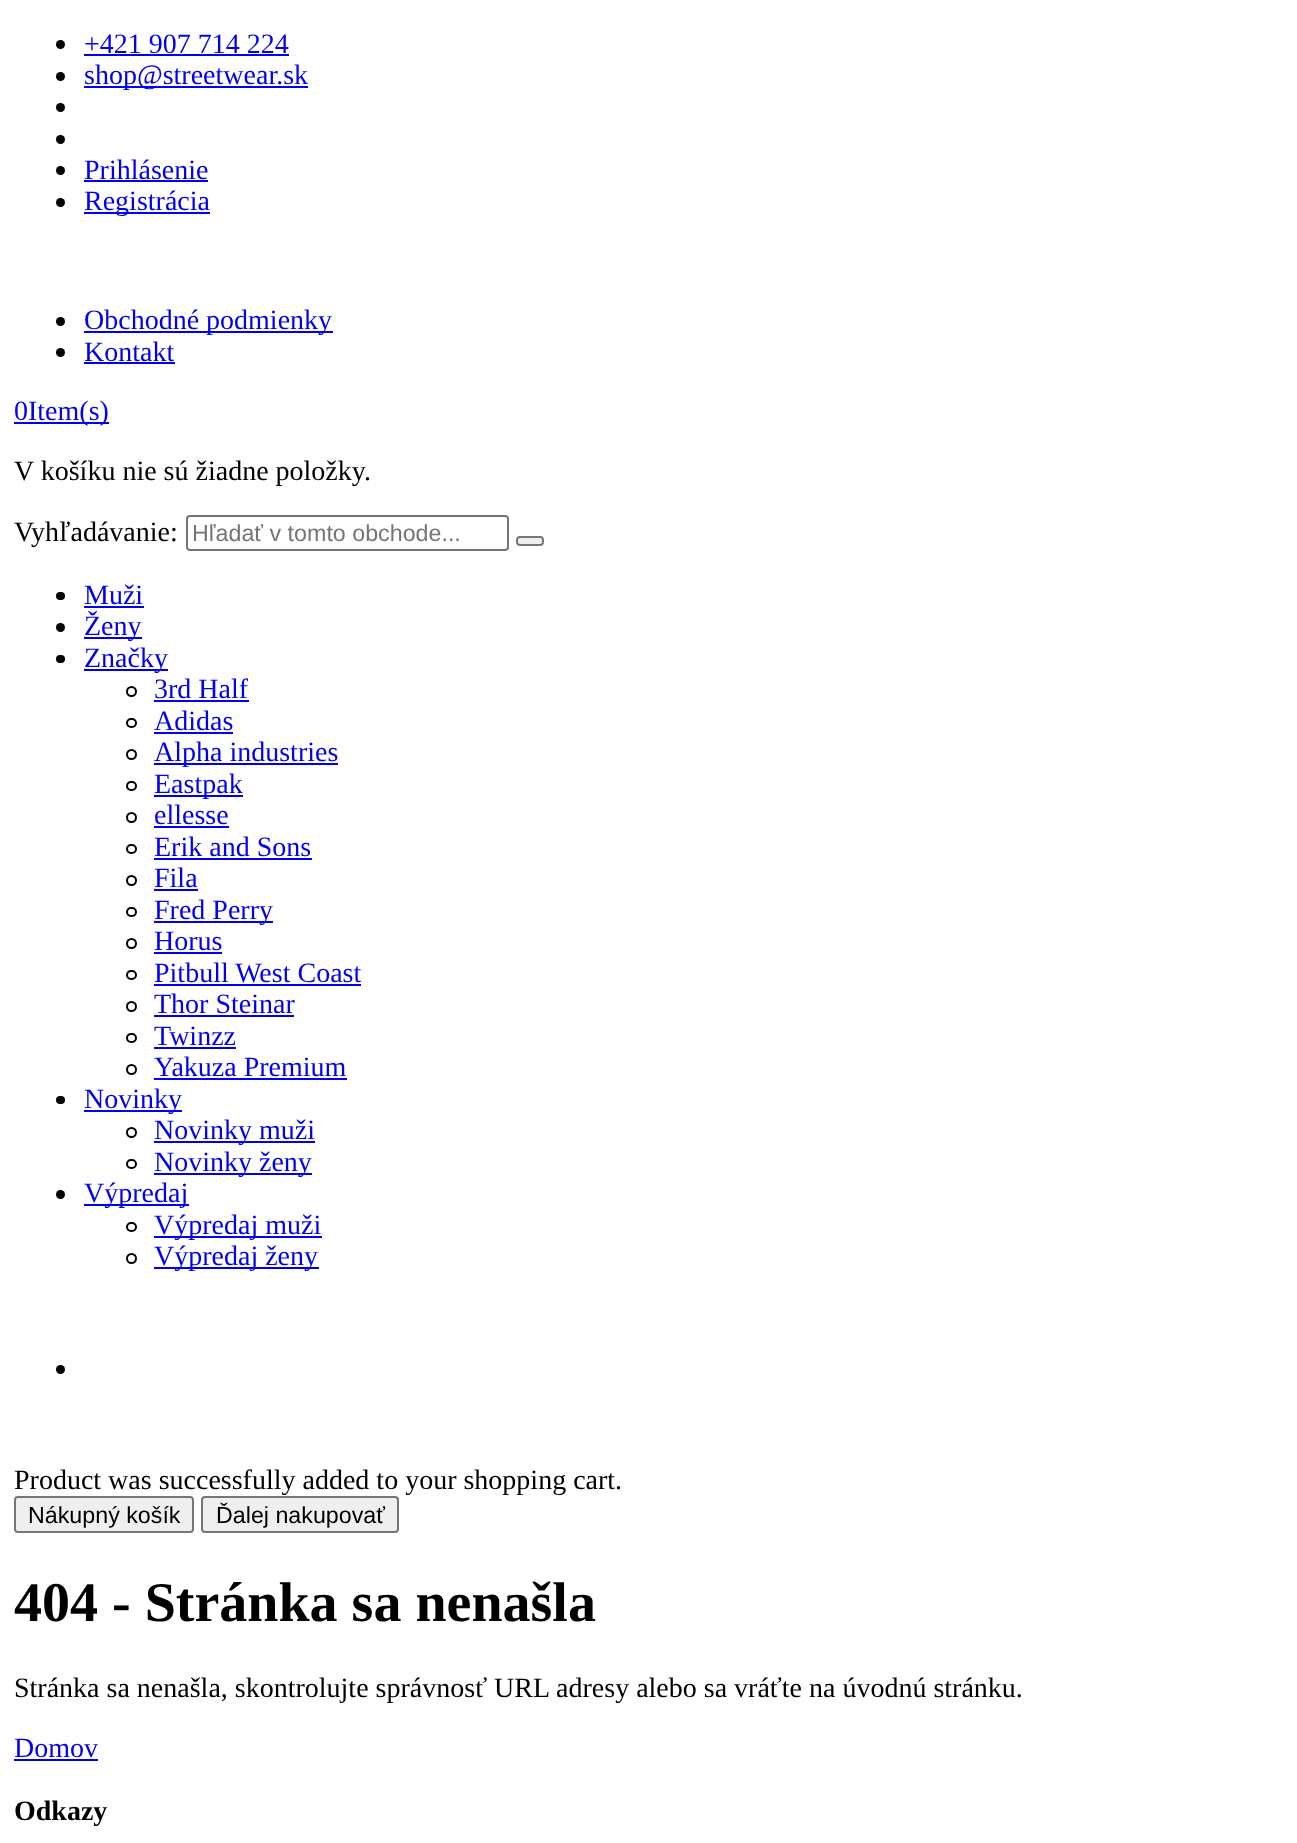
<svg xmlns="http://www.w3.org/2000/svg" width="1297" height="1843">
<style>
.a{font:28px Liberation Serif;fill:#00e}
.b{font:28px Liberation Serif;fill:#000}
.c{font:23.25px Liberation Sans;fill:#757575}
.d{font:23.25px Liberation Sans;fill:#000}
.e{font:bold 56px Liberation Serif;fill:#000}
.f{font:bold 28px Liberation Serif;fill:#000}
</style>
<rect width="100%" height="100%" fill="#fff"/>
<circle fill="#000" cx="60.5" cy="44.5" r="4.5"/>
<path fill="#00e" d="M84 54h205v2H84z"/>
<circle fill="#000" cx="60.5" cy="76.5" r="4.5"/>
<path fill="#00e" d="M84 86h224v2H84z"/>
<circle fill="#000" cx="60.5" cy="107.5" r="4.5"/>
<circle fill="#000" cx="60.5" cy="139.5" r="4.5"/>
<circle fill="#000" cx="60.5" cy="170.5" r="4.5"/>
<path fill="#00e" d="M84 180h124v2H84z"/>
<circle fill="#000" cx="60.5" cy="202.5" r="4.5"/>
<path fill="#00e" d="M84 212h126v2H84z"/>
<circle fill="#000" cx="60.5" cy="321.5" r="4.5"/>
<path fill="#00e" d="M84 331h249v2H84z"/>
<circle fill="#000" cx="60.5" cy="352.5" r="4.5"/>
<path fill="#00e" d="M84 362h91v2H84z"/>
<path fill="#00e" d="M14 422h95v2H14z"/>
<rect fill="none" stroke="#767676" stroke-width="2" x="187" y="516" width="321" height="34" rx="3"/>
<rect fill="#efefef" stroke="#767676" stroke-width="2" x="517" y="537" width="26" height="8" rx="3"/>
<rect fill="#000" x="56" y="592" width="9" height="8" rx="4"/>
<path fill="#00e" d="M84 606h60v2H84z"/>
<circle fill="#000" cx="60.5" cy="627.5" r="4.5"/>
<path fill="#00e" d="M84 637h58v2H84z"/>
<rect fill="#000" x="56" y="655" width="9" height="8" rx="4"/>
<path fill="#00e" d="M84 669h84v2H84z"/>
<circle fill="none" stroke="#000" stroke-width="2" cx="131.5" cy="691.5" r="4.5"/>
<path fill="#00e" d="M154 700h95v2H154z"/>
<rect fill="none" stroke="#000" stroke-width="2" x="127" y="719" width="9" height="8" rx="4"/>
<path fill="#00e" d="M154 732h79v2H154z"/>
<circle fill="none" stroke="#000" stroke-width="2" cx="131.5" cy="754.5" r="4.5"/>
<path fill="#00e" d="M154 763h184v2H154z"/>
<rect fill="none" stroke="#000" stroke-width="2" x="127" y="782" width="9" height="8" rx="4"/>
<path fill="#00e" d="M154 795h89v2H154z"/>
<circle fill="none" stroke="#000" stroke-width="2" cx="131.5" cy="817.5" r="4.5"/>
<path fill="#00e" d="M154 826h75v2H154z"/>
<rect fill="none" stroke="#000" stroke-width="2" x="127" y="845" width="9" height="8" rx="4"/>
<path fill="#00e" d="M154 858h158v2H154z"/>
<circle fill="none" stroke="#000" stroke-width="2" cx="131.5" cy="880.5" r="4.5"/>
<path fill="#00e" d="M154 889h44v2H154z"/>
<rect fill="none" stroke="#000" stroke-width="2" x="127" y="908" width="9" height="8" rx="4"/>
<path fill="#00e" d="M154 921h119v2H154z"/>
<circle fill="none" stroke="#000" stroke-width="2" cx="131.5" cy="943.5" r="4.5"/>
<path fill="#00e" d="M154 952h68v2H154z"/>
<rect fill="none" stroke="#000" stroke-width="2" x="127" y="971" width="9" height="8" rx="4"/>
<path fill="#00e" d="M154 984h207v2H154z"/>
<circle fill="none" stroke="#000" stroke-width="2" cx="131.5" cy="1006.5" r="4.5"/>
<path fill="#00e" d="M154 1015h140v2H154z"/>
<rect fill="none" stroke="#000" stroke-width="2" x="127" y="1034" width="9" height="8" rx="4"/>
<path fill="#00e" d="M154 1047h82v2H154z"/>
<circle fill="none" stroke="#000" stroke-width="2" cx="131.5" cy="1069.5" r="4.5"/>
<path fill="#00e" d="M154 1078h193v2H154z"/>
<rect fill="#000" x="56" y="1096" width="9" height="8" rx="4"/>
<path fill="#00e" d="M84 1110h98v2H84z"/>
<circle fill="none" stroke="#000" stroke-width="2" cx="131.5" cy="1132.5" r="4.5"/>
<path fill="#00e" d="M154 1141h161v2H154z"/>
<rect fill="none" stroke="#000" stroke-width="2" x="127" y="1160" width="9" height="8" rx="4"/>
<path fill="#00e" d="M154 1173h158v2H154z"/>
<circle fill="#000" cx="60.5" cy="1194.5" r="4.5"/>
<path fill="#00e" d="M84 1204h105v2H84z"/>
<rect fill="none" stroke="#000" stroke-width="2" x="127" y="1223" width="9" height="8" rx="4"/>
<path fill="#00e" d="M154 1236h168v2H154z"/>
<circle fill="none" stroke="#000" stroke-width="2" cx="131.5" cy="1258.5" r="4.5"/>
<path fill="#00e" d="M154 1267h165v2H154z"/>
<circle fill="#000" cx="60.5" cy="1369.5" r="4.5"/>
<rect fill="#efefef" stroke="#767676" stroke-width="2" x="15" y="1497" width="178" height="35" rx="3"/>
<rect fill="#efefef" stroke="#767676" stroke-width="2" x="202" y="1497" width="196" height="35" rx="3"/>
<path fill="#00e" d="M14 1759h84v2H14z"/>
<text class="a" x="84" y="53">+421 907 714 224</text>
<text class="a" x="84" y="84">shop@streetwear.sk</text>
<text class="a" x="84" y="179">Prihlásenie</text>
<text class="a" x="84" y="210">Registrácia</text>
<text class="a" x="84" y="329">Obchodné podmienky</text>
<text class="a" x="84" y="361">Kontakt</text>
<text class="a" x="14" y="420">0Item(s)</text>
<text class="b" x="14" y="480">V košíku nie sú žiadne položky.</text>
<text class="b" x="14" y="541">Vyhľadávanie:</text>
<text class="c" x="192" y="541">Hľadať v tomto obchode...</text>
<text class="a" x="84" y="604">Muži</text>
<text class="a" x="84" y="635">Ženy</text>
<text class="a" x="84" y="667">Značky</text>
<text class="a" x="154" y="698">3rd Half</text>
<text class="a" x="154" y="730">Adidas</text>
<text class="a" x="154" y="761">Alpha industries</text>
<text class="a" x="154" y="793">Eastpak</text>
<text class="a" x="154" y="824">ellesse</text>
<text class="a" x="154" y="856">Erik and Sons</text>
<text class="a" x="154" y="887">Fila</text>
<text class="a" x="154" y="919">Fred Perry</text>
<text class="a" x="154" y="950">Horus</text>
<text class="a" x="154" y="982">Pitbull West Coast</text>
<text class="a" x="154" y="1013">Thor Steinar</text>
<text class="a" x="154" y="1045">Twinzz</text>
<text class="a" x="154" y="1076">Yakuza Premium</text>
<text class="a" x="84" y="1108">Novinky</text>
<text class="a" x="154" y="1139">Novinky muži</text>
<text class="a" x="154" y="1171">Novinky ženy</text>
<text class="a" x="84" y="1202">Výpredaj</text>
<text class="a" x="154" y="1234">Výpredaj muži</text>
<text class="a" x="154" y="1265">Výpredaj ženy</text>
<text class="b" x="14" y="1489">Product was successfully added to your shopping cart.</text>
<text class="d" x="28" y="1523">Nákupný košík</text>
<text class="d" x="216" y="1523">Ďalej nakupovať</text>
<text class="e" x="14" y="1621">404 - Stránka sa nenašla</text>
<text class="b" x="14" y="1697">Stránka sa nenašla, skontrolujte správnosť URL adresy alebo sa vráťte na úvodnú stránku.</text>
<text class="a" x="14" y="1757">Domov</text>
<text class="f" x="14" y="1820">Odkazy</text>
</svg>
